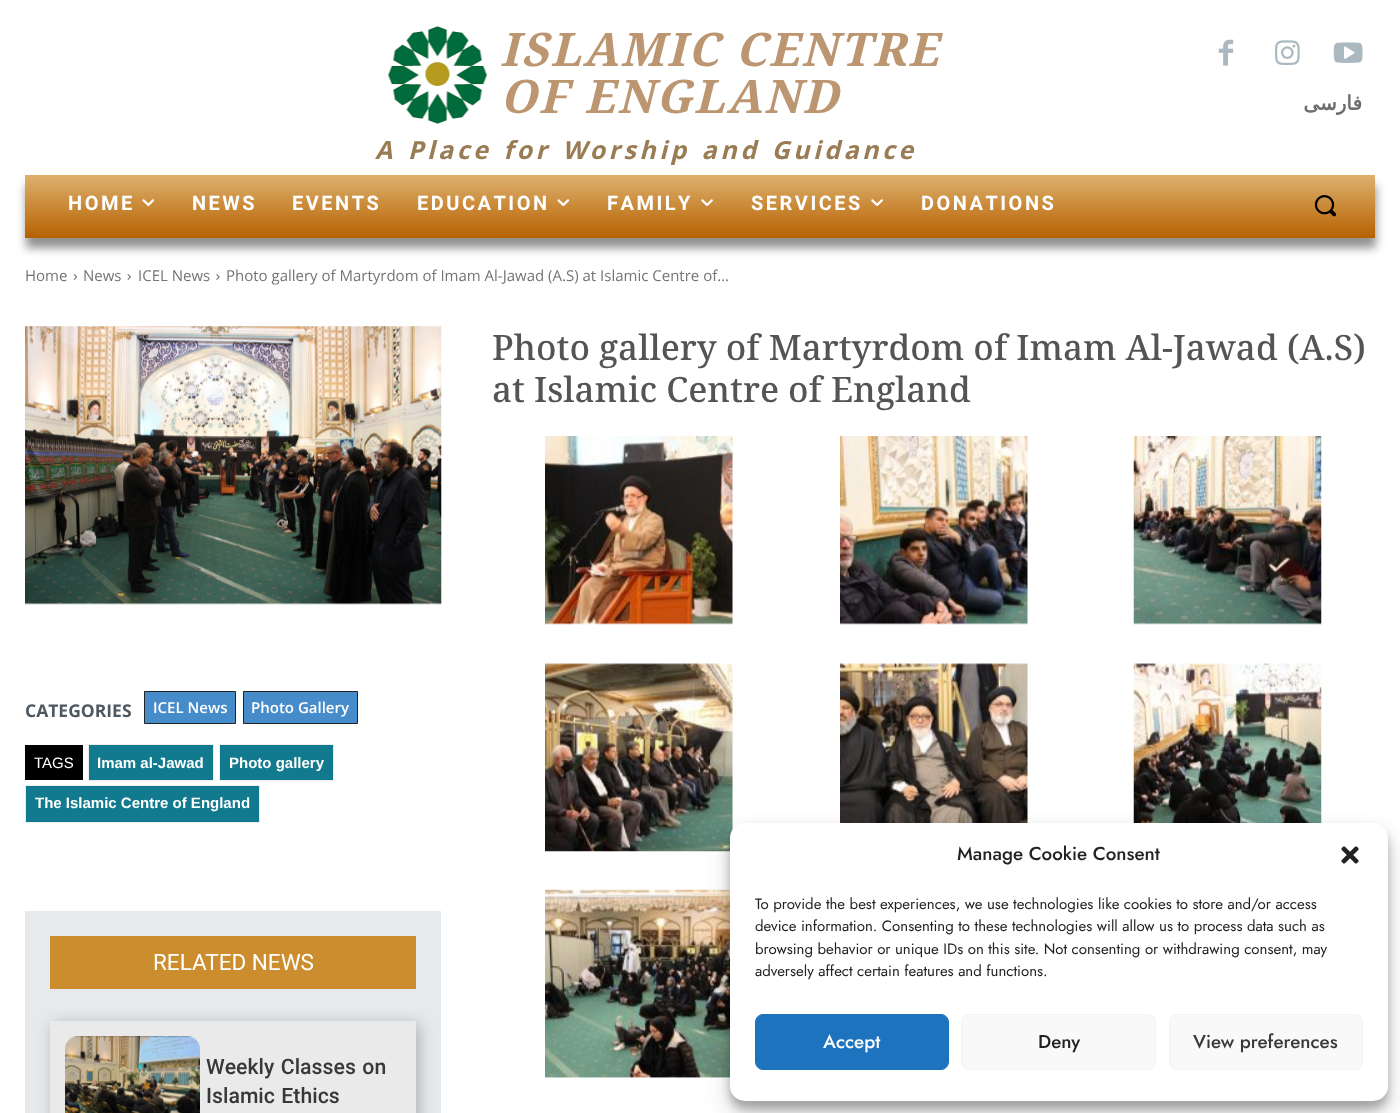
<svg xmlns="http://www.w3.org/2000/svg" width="1400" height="1113">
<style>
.a{font:italic bold 46.25px Noto Serif;letter-spacing:2.4px;fill:#bc9670}
.b{font:italic bold 25px Noto Kufi Arabic;letter-spacing:3.5px;fill:#9a7c54}
.c{font:bold 20px DejaVu Sans;direction:rtl;fill:#6d6d6d}
.d{font:bold 20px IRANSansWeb;letter-spacing:2.5px;fill:#fff}
.e{font:15px Open Sans;fill:#747474}
.f{font:500 35px Noto Serif;fill:#545454}
.g{font:bold 17.5px Open Sans;fill:#4d5860}
.h{font:600 15px Open Sans;fill:#fff}
.i{font:15px Liberation Sans;fill:#fff}
.j{font:bold 15px Liberation Sans;fill:#fff}
.k{font:22.5px Roboto;fill:#fff}
.l{font:500 21.25px IRANSansWeb;fill:#383838}
.m{font:500 18.75px Jost;fill:#222}
.n{font:15px Jost;fill:#222}
.o{font:500 18.75px Jost;fill:#fff}
.p{font:500 18.75px Jost;fill:#383838}
</style>
<defs>
<linearGradient id="g1" gradientUnits="userSpaceOnUse" x1="700" y1="175" x2="700" y2="238"><stop offset="0" stop-color="#ddb16e"/><stop offset="1" stop-color="#b76100"/></linearGradient>
</defs>
<rect width="100%" height="100%" fill="#fff"/>
<image href="1.png" x="387" y="26" width="101" height="98"/>
<image href="2.png" x="1218" y="39" width="16" height="27"/>
<image href="3.png" x="1275" y="40" width="25" height="25"/>
<image href="4.png" x="1333" y="42" width="30" height="21"/>
<path fill="#0000006e" filter="blur(5px)" d="M26 185h1350v63H26z"/>
<path fill="url(#g1)" d="M25 175h1350v63H25z"/>
<image href="5.png" x="142" y="199" width="13" height="8"/>
<image href="5.png" x="557" y="199" width="13" height="8"/>
<image href="6.png" x="701" y="199" width="12" height="7"/>
<image href="6.png" x="871" y="199" width="12" height="7"/>
<image href="7.png" x="1314" y="195" width="23" height="22"/>
<image href="8.png" x="73" y="274" width="5" height="6"/>
<image href="9.png" x="127" y="274" width="4" height="6"/>
<image href="10.png" x="216" y="274" width="4" height="6"/>
<image href="11.png" x="545" y="436" width="188" height="189"/>
<image href="12.png" x="840" y="436" width="188" height="189"/>
<image href="13.png" x="1133" y="436" width="189" height="189"/>
<image href="14.png" x="545" y="663" width="188" height="189"/>
<image href="15.png" x="840" y="663" width="188" height="160"/>
<image href="16.png" x="1133" y="663" width="189" height="160"/>
<image href="17.png" x="545" y="889" width="185" height="189"/>
<image href="18.png" x="25" y="326" width="417" height="279"/>
<path fill="#478cca" stroke="#222" d="M144.5 691.5h91v32H144.5z"/>
<path fill="#478cca" stroke="#222" d="M243.5 691.5h114v32H243.5z"/>
<path fill="#000" d="M25 745h58v35H25z"/>
<path fill="#127a8e" stroke="#ededed" d="M88.5 744.5h125v36H88.5z"/>
<path fill="#127a8e" stroke="#ededed" d="M219.5 744.5h114v36H219.5z"/>
<path fill="#127a8e" stroke="#ededed" d="M25.5 785.5h234v37H25.5z"/>
<path fill="#e6eaed" d="M25 911h416v202H25z"/>
<path fill="#cc8d2e" d="M50 936h366v53H50z"/>
<path fill="#82828291" filter="blur(7.5px)" d="M53 1024h366v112H53z"/>
<path fill="#eaeaea" d="M50 1021h366v92H50z"/>
<image href="19.png" x="65" y="1036" width="135" height="77"/>
<rect fill="#0000003b" filter="blur(4px)" x="730" y="830" width="658" height="279" rx="15"/>
<rect fill="#00000030" filter="blur(12.5px)" x="730" y="835" width="658" height="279" rx="15"/>
<rect fill="#fff" x="730" y="823" width="658" height="278" rx="15"/>
<image href="20.png" x="1341" y="846" width="18" height="18"/>
<rect fill="#1e73be" stroke="#1e73be" x="755.5" y="1014.5" width="193" height="55" rx="7.5"/>
<rect fill="#f9f9f9" stroke="#f2f2f2" x="961.5" y="1014.5" width="194" height="55" rx="7.5"/>
<rect fill="#f9f9f9" stroke="#f2f2f2" x="1169.5" y="1014.5" width="193" height="55" rx="7.5"/>
<text class="a" x="500" y="66">ISLAMIC CENTRE</text>
<text class="a" x="500" y="113">OF ENGLAND</text>
<text class="b" x="375" y="159">A Place for Worship and Guidance</text>
<text class="c" x="1362" y="110">فارسی</text>
<text class="d" x="68" y="210">HOME</text>
<text class="d" x="192" y="210">NEWS</text>
<text class="d" x="292" y="210">EVENTS</text>
<text class="d" x="417" y="210">EDUCATION</text>
<text class="d" x="607" y="210">FAMILY</text>
<text class="d" x="751" y="210">SERVICES</text>
<text class="d" x="921" y="210">DONATIONS</text>
<text class="e" x="25" y="281">Home</text>
<text class="e" x="83" y="281">News</text>
<text class="e" x="138" y="281">ICEL News</text>
<text class="e" x="226" y="281">Photo gallery of Martyrdom of Imam Al-Jawad (A.S) at Islamic Centre of...</text>
<text class="f" x="492" y="360">Photo gallery of Martyrdom of Imam Al-Jawad (A.S)</text>
<text class="f" x="492" y="402">at Islamic Centre of England</text>
<text class="g" x="25" y="717">CATEGORIES</text>
<text class="h" x="153" y="713">ICEL News</text>
<text class="h" x="251" y="713">Photo Gallery</text>
<text class="i" x="34" y="768">TAGS</text>
<text class="j" x="97" y="768">Imam al-Jawad</text>
<text class="j" x="229" y="768">Photo gallery</text>
<text class="j" x="35" y="808">The Islamic Centre of England</text>
<text class="k" x="153" y="970">RELATED NEWS</text>
<text class="l" x="206" y="1074">Weekly Classes on</text>
<text class="l" x="206" y="1103">Islamic Ethics</text>
<text class="m" x="957" y="860">Manage Cookie Consent</text>
<text class="n" x="755" y="909">To provide the best experiences, we use technologies like cookies to store and/or access</text>
<text class="n" x="755" y="931">device information. Consenting to these technologies will allow us to process data such as</text>
<text class="n" x="755" y="954">browsing behavior or unique IDs on this site. Not consenting or withdrawing consent, may</text>
<text class="n" x="755" y="976">adversely affect certain features and functions.</text>
<text class="o" x="823" y="1048">Accept</text>
<text class="m" x="1038" y="1048">Deny</text>
<text class="p" x="1193" y="1048">View preferences</text>
</svg>
